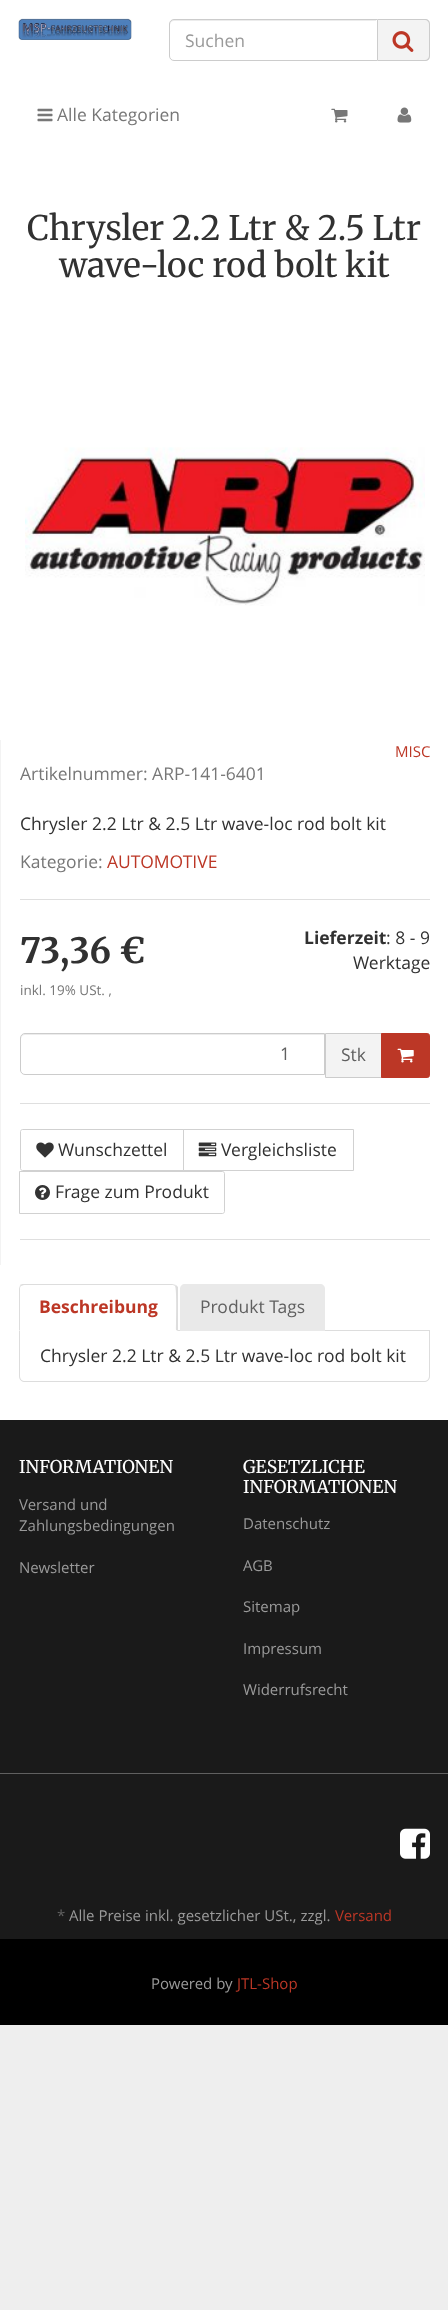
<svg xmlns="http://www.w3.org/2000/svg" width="448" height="2310">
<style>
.a{font:17.5px Open Sans;fill:#9a9a9a}
.b{font:17.5px Open Sans;fill:#777}
.c{font:33.75px Merriweather;fill:#313131}
.d{font:15px Open Sans;fill:#bc3726}
.e{font:17.5px Open Sans;fill:#313131}
.f{font:17.5px Open Sans;fill:#bc3726}
.g{font:bold 35px Merriweather;fill:#313131}
.h{font:13.5px Open Sans;fill:#777}
.i{font:bold 17.5px Open Sans;fill:#313131}
.j{font:17.5px Open Sans;fill:#606060}
.k{font:bold 17.5px Open Sans;fill:#bc3726}
.l{font:17.5px 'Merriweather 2';fill:#fff}
.m{font:15px Open Sans;fill:#9a9a9a}
.n{font:15px Open Sans;fill:#606060}
</style>
<rect width="100%" height="100%" fill="#eee"/>
<path fill="#fff" d="M0 0h448v1420H0z"/>
<image href="1.png" x="18" y="18" width="114" height="22"/>
<path fill="#ececec" d="M174 21h202v-1h-204c-2 1-2 3-2 5c0-2 2-4 4-4z"/>
<path fill="none" stroke="#ccc" d="M174 19.5h203.5v41h-203.5c-2.5 0-4.5-2-4.5-4.5v-32c0-2.5 2-4.5 4.5-4.5z"/>
<path fill="#f3f3f3" d="M378 19h47c3 0 5 2 5 5v32c0 3-2 5-5 5h-47z"/>
<path fill="#ccc" fill-rule="evenodd" d="M378 19h47c3 0 5 2 5 5v32c0 3-2 5-5 5h-47zm0 1h47c2 0 4 2 4 4v32c0 2-2 4-4 4h-47z"/>
<image href="2.png" x="392" y="31" width="22" height="21"/>
<image href="3.png" x="37" y="108" width="16" height="14"/>
<image href="4.png" x="331" y="108" width="17" height="15"/>
<image href="5.png" x="397" y="107" width="15" height="16"/>
<image href="6.png" x="25" y="447" width="400" height="159"/>
<path fill="#f3f3f3" d="M0 740h1v525H0z"/>
<path fill="#dfdfdf" d="M20 899h410v1H20z"/>
<path fill="#ececec" d="M25 1035h299v-1h-299c-2 0-4 2-4 4v1c0-2 2-4 4-4z"/>
<path fill="none" stroke="#ccc" d="M25 1033.5h299.5v41h-299.5c-2.5 0-4.5-2-4.5-4.5v-32c0-2.5 2-4.5 4.5-4.5z"/>
<path fill="#f3f3f3" d="M326 1034h55v43H326z"/>
<path fill="none" stroke="#ccc" d="M325.5 1033.5h57v44H325.5z"/>
<path fill="#bc3726" stroke="#bc3726" d="M381.5 1033.5h46c1 0 2 1 2 2v40c0 1-1 2-2 2h-46z"/>
<image href="7.png" x="397" y="1048" width="17" height="15"/>
<path fill="#dfdfdf" d="M20 1103h410v1H20z"/>
<path fill="none" stroke="#d1d1d1" d="M22.5 1129.5h161v41h-161c-1 0-2-1-2-2v-37c0-1 1-2 2-2z"/>
<image href="8.png" x="36" y="1142" width="18" height="16"/>
<path fill="none" stroke="#d1d1d1" d="M183.5 1129.5h170v41H183.5z"/>
<image href="9.png" x="198" y="1142" width="19" height="15"/>
<path fill="none" stroke="#d1d1d1" d="M19.5 1171.5h203c1 0 2 1 2 2v38c0 1-1 2-2 2h-203z"/>
<image href="10.png" x="35" y="1185" width="15" height="15"/>
<path fill="#dfdfdf" d="M20 1239h410v1H20z"/>
<path fill="#ddd" d="M178 1330h252v1H178z"/>
<path fill="#ddd" d="M24 1284c-2 0-3 0-4 1l1 1l3-1h148c1 0 2 0 3 1l1-1l-4-1z"/>
<path fill="#ddd" d="M176 1285l2 2v44l-2-1c0-6 1-41-1-44z"/>
<path fill="#ddd" d="M20 1285c0 1-1 3-1 4v42l1-1v-41c0-1 0-2 1-3z"/>
<path fill="#e9e9e9" d="M185 1284h135c3 0 5 2 5 5v42h-145v-42c0-3 2-5 5-5z"/>
<path fill="#ddd" fill-rule="evenodd" d="M19 1331h411v45c0 4-3 6-6 6h-399c-3 0-6-2-6-6zm1 0h409v45c0 3-2 5-5 5h-399c-3 0-5-2-5-5z"/>
<path fill="#1a1a1a" d="M0 1420h448v519H0z"/>
<path fill="#606060" d="M0 1773h448v1H0z"/>
<image href="11.png" x="400" y="1828" width="30" height="31"/>
<path fill="#000" d="M0 1939h448v86H0z"/>
<text class="a" x="185" y="47">Suchen</text>
<text class="b" x="57" y="121">Alle Kategorien</text>
<text class="c" x="27" y="240">Chrysler 2.2 Ltr &amp; 2.5 Ltr</text>
<text class="c" x="59" y="277">wave-loc rod bolt kit</text>
<text class="d" x="395" y="757">MISC</text>
<text class="b" x="20" y="780">Artikelnummer: ARP-141-6401</text>
<text class="e" x="20" y="830">Chrysler 2.2 Ltr &amp; 2.5 Ltr wave-loc rod bolt kit</text>
<text class="b" x="20" y="868">Kategorie:</text>
<text class="f" x="107" y="868">AUTOMOTIVE</text>
<text class="g" x="20" y="963">73,36 €</text>
<text class="h" x="20" y="995">inkl. 19% USt. ,</text>
<text class="i" x="304" y="944">Lieferzeit</text>
<text class="e" x="386" y="944">: 8 - 9</text>
<text class="e" x="353" y="969">Werktage</text>
<text class="j" x="280" y="1060">1</text>
<text class="j" x="341" y="1061">Stk</text>
<text class="e" x="58" y="1156">Wunschzettel</text>
<text class="e" x="221" y="1156">Vergleichsliste</text>
<text class="e" x="55" y="1198">Frage zum Produkt</text>
<text class="k" x="39" y="1313">Beschreibung</text>
<text class="j" x="200" y="1313">Produkt Tags</text>
<text class="e" x="40" y="1362">Chrysler 2.2 Ltr &amp; 2.5 Ltr wave-loc rod bolt kit</text>
<text class="l" x="19" y="1473">INFORMATIONEN</text>
<text class="m" x="19" y="1510">Versand und</text>
<text class="m" x="19" y="1531">Zahlungsbedingungen</text>
<text class="m" x="19" y="1573">Newsletter</text>
<text class="l" x="243" y="1473">GESETZLICHE</text>
<text class="l" x="243" y="1493">INFORMATIONEN</text>
<text class="m" x="243" y="1529">Datenschutz</text>
<text class="m" x="243" y="1571">AGB</text>
<text class="m" x="243" y="1612">Sitemap</text>
<text class="m" x="243" y="1654">Impressum</text>
<text class="m" x="243" y="1695">Widerrufsrecht</text>
<text class="n" x="57" y="1921">*</text>
<text class="m" x="69" y="1921">Alle Preise inkl. gesetzlicher USt., zzgl.</text>
<text class="d" x="335" y="1921">Versand</text>
<text class="m" x="151" y="1989">Powered by</text>
<text class="d" x="237" y="1989">JTL-Shop</text>
</svg>
